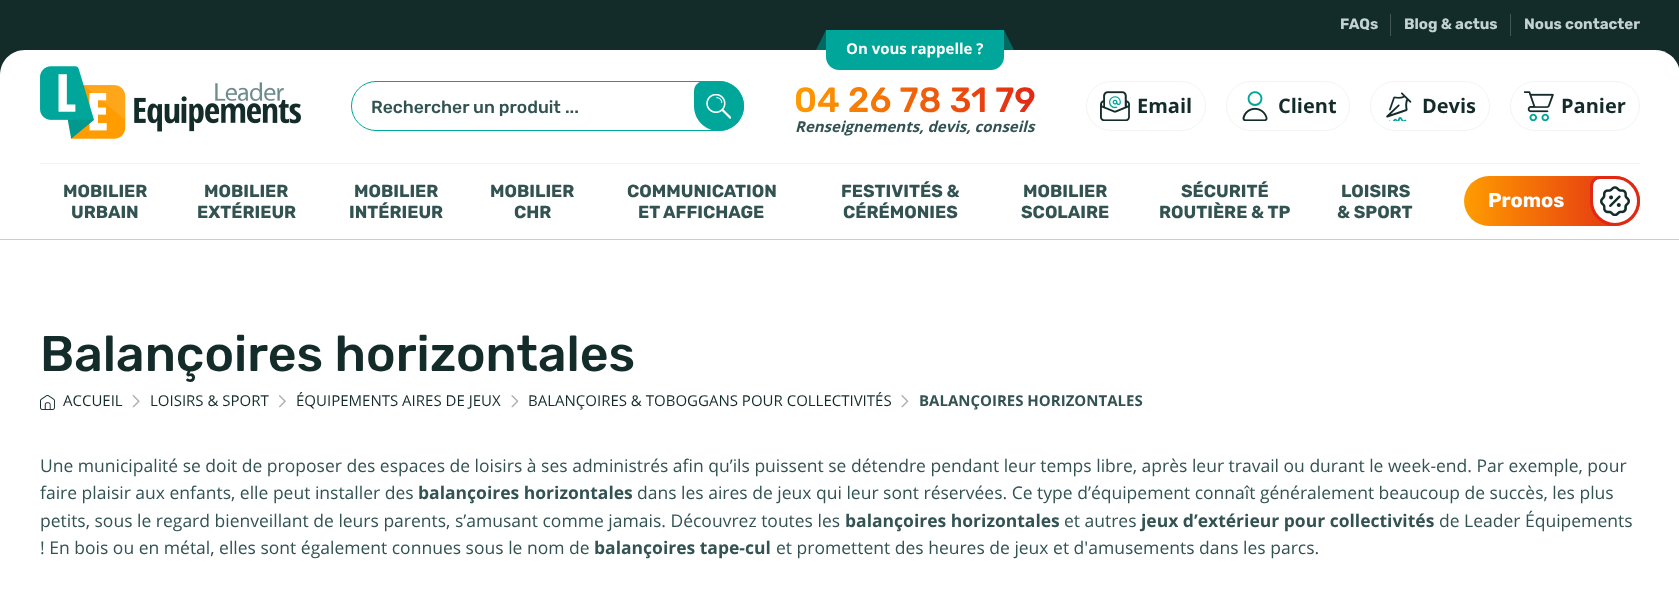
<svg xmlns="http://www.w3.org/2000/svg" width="1679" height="596">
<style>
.a{font:bold 15px Rubik;fill:#c2d1d1}
.b{font:500 17.5px Rubik;fill:#335353}
.c{font:bold 15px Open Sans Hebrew;fill:#fff}
.d{font:500 35px Rubik;fill:url(#g2)}
.e{font:italic bold 15px Open Sans Hebrew;fill:#335353}
.f{font:bold 20px Open Sans Hebrew;fill:#132c2a}
.g{font:bold 17.5px Rubik;fill:#335353}
.h{font:bold 20px Rubik;fill:#fff}
.i{font:500 50px Rubik;fill:#132c2a}
.j{font:15px Open Sans Hebrew;fill:#132c2a}
.k{font:bold 15px Open Sans Hebrew;fill:#335353}
.l{font:17.5px Open Sans Hebrew;fill:#335353}
.m{font:bold 17.5px Open Sans Hebrew;fill:#335353}
</style>
<defs>
<linearGradient id="g1" gradientUnits="userSpaceOnUse" x1="1288" y1="201" x2="1640" y2="201"><stop offset="0" stop-color="#e12814"/><stop offset="0.5" stop-color="#ff9c00"/><stop offset="1" stop-color="#e12814"/></linearGradient>
<clipPath id="clip1"><path d="M371 96h310v20H371z"/></clipPath>
<linearGradient id="g2" gradientUnits="userSpaceOnUse" x1="553" y1="100" x2="1036" y2="100"><stop offset="0" stop-color="#e12814"/><stop offset="0.5" stop-color="#ff9c00"/><stop offset="1" stop-color="#e12814"/></linearGradient>
</defs>
<rect width="100%" height="100%" fill="#132c2a"/>
<path fill="#425655" d="M1390 14h1v22H1390z"/>
<path fill="#425655" d="M1510 14h1v22H1510z"/>
<path fill="#c2d1d1" d="M0 239h1679v1H0z"/>
<path fill="#fff" d="M25 50h1630c14 0 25 11 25 25v88h-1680v-88c0-14 11-25 25-25z"/>
<image href="1.png" x="40" y="66" width="261" height="73"/>
<rect fill="none" stroke="#00a699" x="351.5" y="81.5" width="392" height="49" rx="24.5"/>
<path fill="#00a699" d="M704 81h15c14 0 25 11 25 25c0 14-11 25-25 25c-14 0-25-11-25-25v-15c0-5.5 4.5-10 10-10z"/>
<image href="2.png" x="706" y="94" width="25" height="25"/>
<path fill="#00a699" d="M826 30h178v27c0 7-6 13-13 13h-152c-7 0-13-6-13-13z"/>
<path fill="#006961" d="M826 50h-10l10-20z"/>
<path fill="#006961" d="M1004 50h10l-10-20z"/>
<rect fill="none" stroke="#f2f4f4" x="1086.5" y="81.5" width="119" height="49" rx="24.5"/>
<image href="3.png" x="1100" y="91" width="30" height="30"/>
<rect fill="none" stroke="#f2f4f4" x="1226.5" y="81.5" width="123" height="49" rx="24.5"/>
<image href="4.png" x="1242" y="91" width="26" height="30"/>
<rect fill="none" stroke="#f2f4f4" x="1370.5" y="81.5" width="119" height="49" rx="24.5"/>
<image href="5.png" x="1386" y="92" width="26" height="29"/>
<rect fill="none" stroke="#f2f4f4" x="1510.5" y="81.5" width="129" height="49" rx="24.5"/>
<image href="6.png" x="1524" y="91" width="30" height="30"/>
<path fill="#fff" d="M0 163h1679v76H0z"/>
<path fill="#f2f4f4" d="M40 163h1600v1H40z"/>
<rect fill="url(#g1)" x="1464" y="176" width="176" height="50" rx="25"/>
<path fill="#fff" stroke="#e12814" stroke-width="3" d="M1600 177.5h15c13 0 23.5 10.5 23.5 23.5c0 13-10.5 23.5-23.5 23.5c-13 0-23.5-10.5-23.5-23.5v-15c0-4.5 4-8.5 8.5-8.5z"/>
<image href="7.png" x="1600" y="186" width="30" height="30"/>
<path fill="#fff" d="M0 240h1679v356H0z"/>
<image href="8.png" x="40" y="395" width="15" height="15"/>
<image href="9.png" x="132" y="395" width="8" height="13"/>
<image href="10.png" x="279" y="395" width="7" height="13"/>
<image href="11.png" x="511" y="395" width="8" height="13"/>
<image href="11.png" x="901" y="395" width="8" height="13"/>
<text class="a" x="1340" y="29">FAQs</text>
<text class="a" x="1404" y="29">Blog &amp; actus</text>
<text class="a" x="1524" y="29">Nous contacter</text>
<g clip-path="url(#clip1)">
<text class="b" x="371" y="113">Rechercher un produit ...</text>
</g>
<text class="c" x="846" y="54">On vous rappelle ?</text>
<text class="d" x="794" y="112">04 26 78 31 79</text>
<text class="e" x="795" y="132">Renseignements, devis, conseils</text>
<text class="f" x="1137" y="113">Email</text>
<text class="f" x="1278" y="113">Client</text>
<text class="f" x="1422" y="113">Devis</text>
<text class="f" x="1561" y="113">Panier</text>
<text class="g" x="63" y="197">MOBILIER</text>
<text class="g" x="71" y="218">URBAIN</text>
<text class="g" x="204" y="197">MOBILIER</text>
<text class="g" x="197" y="218">EXTÉRIEUR</text>
<text class="g" x="354" y="197">MOBILIER</text>
<text class="g" x="349" y="218">INTÉRIEUR</text>
<text class="g" x="490" y="197">MOBILIER</text>
<text class="g" x="514" y="218">CHR</text>
<text class="g" x="627" y="197">COMMUNICATION</text>
<text class="g" x="638" y="218">ET AFFICHAGE</text>
<text class="g" x="841" y="197">FESTIVITÉS &amp;</text>
<text class="g" x="843" y="218">CÉRÉMONIES</text>
<text class="g" x="1023" y="197">MOBILIER</text>
<text class="g" x="1021" y="218">SCOLAIRE</text>
<text class="g" x="1181" y="197">SÉCURITÉ</text>
<text class="g" x="1159" y="218">ROUTIÈRE &amp; TP</text>
<text class="g" x="1341" y="197">LOISIRS</text>
<text class="g" x="1337" y="218">&amp; SPORT</text>
<text class="h" x="1488" y="207">Promos</text>
<text class="i" x="40" y="371">Balançoires horizontales</text>
<text class="j" x="63" y="406">ACCUEIL</text>
<text class="j" x="150" y="406">LOISIRS &amp; SPORT</text>
<text class="j" x="296" y="406">ÉQUIPEMENTS AIRES DE JEUX</text>
<text class="j" x="528" y="406">BALANÇOIRES &amp; TOBOGGANS POUR COLLECTIVITÉS</text>
<text class="k" x="919" y="406">BALANÇOIRES HORIZONTALES</text>
<text class="l" x="40" y="472">Une municipalité se doit de proposer des espaces de loisirs à ses administrés afin qu’ils puissent se détendre pendant leur temps libre, après leur travail ou durant le week-end. Par exemple, pour</text>
<text class="l" x="40" y="499">faire plaisir aux enfants, elle peut installer des</text>
<text class="m" x="418" y="499">balançoires horizontales</text>
<text class="l" x="637" y="499">dans les aires de jeux qui leur sont réservées. Ce type d’équipement connaît généralement beaucoup de succès, les plus</text>
<text class="l" x="40" y="527">petits, sous le regard bienveillant de leurs parents, s’amusant comme jamais. Découvrez toutes les</text>
<text class="m" x="845" y="527">balançoires horizontales</text>
<text class="l" x="1064" y="527">et autres</text>
<text class="m" x="1141" y="527">jeux d’extérieur pour collectivités</text>
<text class="l" x="1439" y="527">de Leader Équipements</text>
<text class="l" x="40" y="554">! En bois ou en métal, elles sont également connues sous le nom de</text>
<text class="m" x="594" y="554">balançoires tape-cul</text>
<text class="l" x="776" y="554">et promettent des heures de jeux et d'amusements dans les parcs.</text>
</svg>
